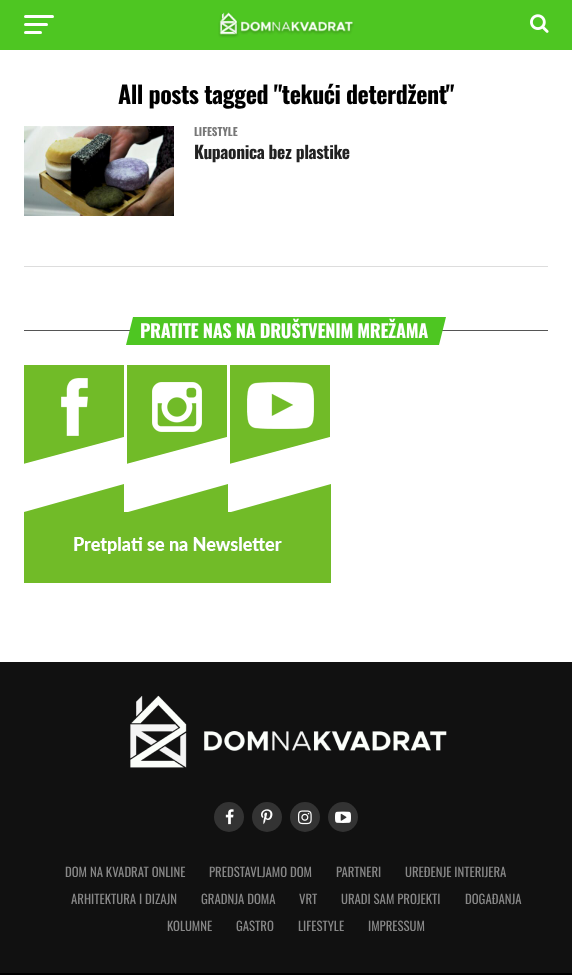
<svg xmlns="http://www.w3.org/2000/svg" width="572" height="975">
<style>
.a{font:bold 24px Oswald;letter-spacing:-0.5px;fill:#000}
.b{font:bold 11px Oswald;fill:#777}
.c{font:bold 17.5px Oswald;letter-spacing:-0.35px;fill:#222}
.d{font:bold 18.25px Oswald;letter-spacing:-0.3px;fill:#fff}
.e{font:12.75px Oswald;fill:#888}
</style>
<rect width="100%" height="100%" fill="#fff"/>
<path fill="#4ec622" d="M0 0h572v50H0z"/>
<rect fill="#fff" x="24" y="15" width="30" height="3" rx="1.5"/>
<rect fill="#fff" x="24" y="23" width="24" height="3" rx="1.5"/>
<rect fill="#fff" x="24" y="31" width="18" height="3" rx="1.5"/>
<image href="1.png" x="218" y="12" width="136" height="26"/>
<image href="2.png" x="530" y="14" width="19" height="19"/>
<image href="3.png" x="24" y="126" width="150" height="90"/>
<path fill="#ddd" d="M24 266h524v1H24z"/>
<path fill="#555" d="M24 330h524v1H24z"/>
<path fill="#4ec622" d="M133 317h313l-7 28h-313z"/>
<image href="4.png" x="24" y="365" width="100" height="99"/>
<image href="5.png" x="127" y="365" width="100" height="99"/>
<image href="6.png" x="230" y="365" width="100" height="99"/>
<image href="7.png" x="24" y="484" width="307" height="99"/>
<path fill="#111" d="M0 662h572v311H0z"/>
<image href="8.png" x="130" y="695" width="317" height="73"/>
<circle fill="#333" cx="229" cy="817" r="15"/>
<image href="9.png" x="225" y="809" width="9" height="16"/>
<circle fill="#333" cx="267" cy="817" r="15"/>
<image href="10.png" x="261" y="809" width="12" height="16"/>
<circle fill="#333" cx="305" cy="817" r="15"/>
<image href="11.png" x="298" y="810" width="14" height="15"/>
<circle fill="#333" cx="343" cy="817" r="15"/>
<image href="12.png" x="335" y="811" width="16" height="12"/>
<path fill="#000" d="M0 973h572v2H0z"/>
<text class="a" x="118" y="104">All posts tagged "tekući deterdžent"</text>
<text class="b" x="194" y="136">LIFESTYLE</text>
<text class="c" x="194" y="159">Kupaonica bez plastike</text>
<text class="d" x="140" y="338">PRATITE NAS NA DRUŠTVENIM MREŽAMA</text>
<text class="e" x="65" y="877">DOM NA KVADRAT ONLINE</text>
<text class="e" x="209" y="877">PREDSTAVLJAMO DOM</text>
<text class="e" x="336" y="877">PARTNERI</text>
<text class="e" x="405" y="877">UREĐENJE INTERIJERA</text>
<text class="e" x="71" y="904">ARHITEKTURA I DIZAJN</text>
<text class="e" x="201" y="904">GRADNJA DOMA</text>
<text class="e" x="299" y="904">VRT</text>
<text class="e" x="341" y="904">URADI SAM PROJEKTI</text>
<text class="e" x="465" y="904">DOGAĐANJA</text>
<text class="e" x="167" y="931">KOLUMNE</text>
<text class="e" x="236" y="931">GASTRO</text>
<text class="e" x="298" y="931">LIFESTYLE</text>
<text class="e" x="368" y="931">IMPRESSUM</text>
</svg>
